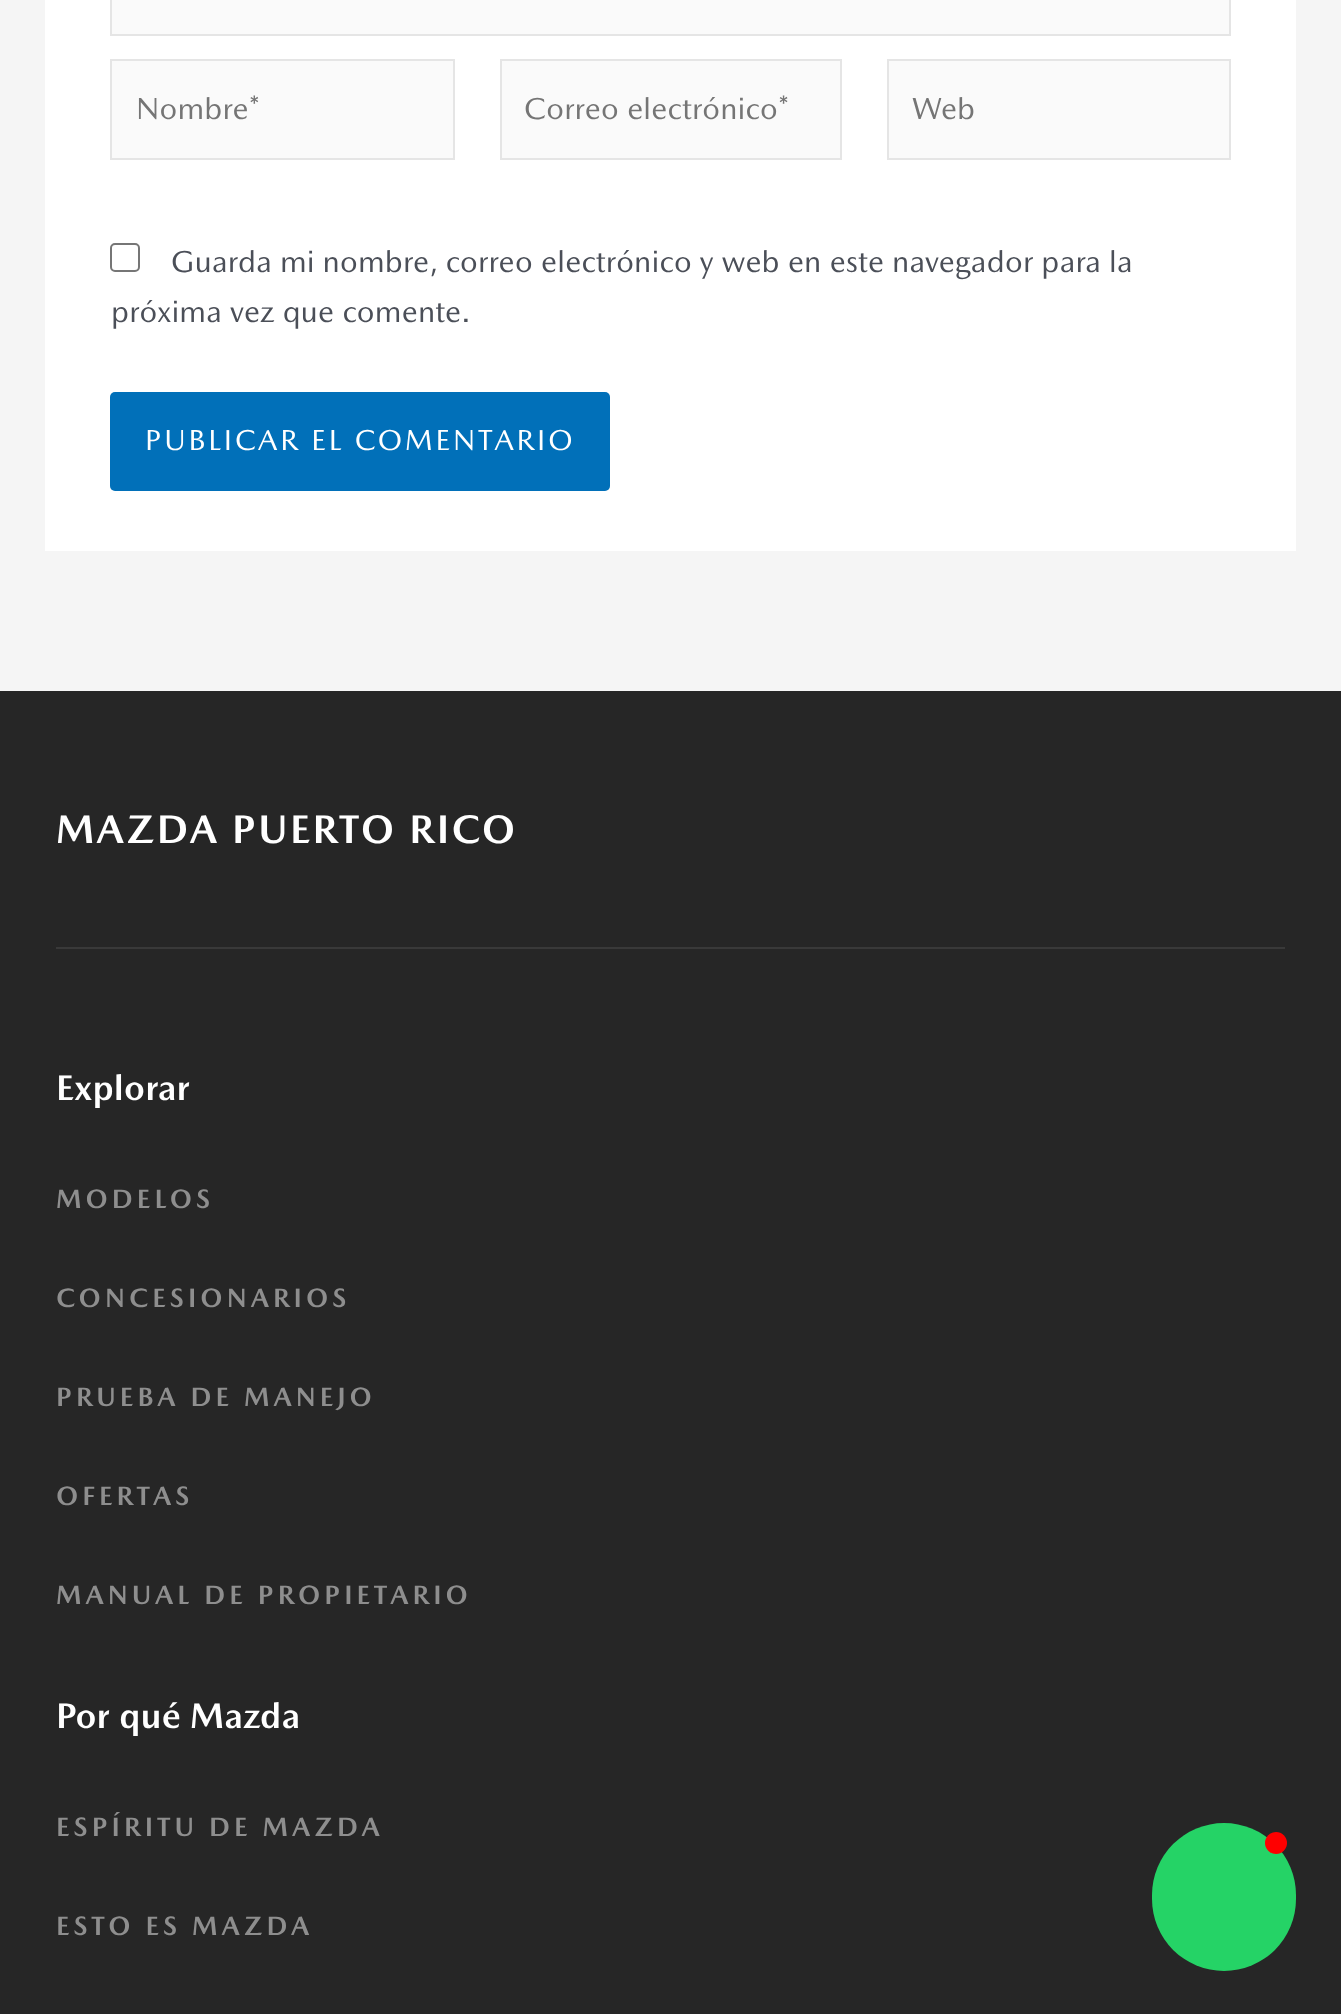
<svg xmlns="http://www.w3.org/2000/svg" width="1341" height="2014">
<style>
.a{font:30.75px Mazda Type;fill:#757575}
.b{font:30.75px Mazda Type;fill:#4b4f58}
.c{font:29.25px Mazda Type;letter-spacing:2.9px;fill:#fff}
.d{font:bold 40.5px Mazda Type;letter-spacing:2.4px;fill:#fff}
.e{font:bold 36px Mazda Type;fill:#fff}
.f{font:bold 27px Mazda Type;letter-spacing:4.05px;fill:#8e8e8e}
</style>
<rect width="100%" height="100%" fill="#f5f5f5"/>
<path fill="#fff" d="M45 0h1251v551H45z"/>
<path fill="#fafafa" stroke="#e5e5e5" stroke-width="2" d="M111 -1h1119v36H111z"/>
<path fill="#fafafa" stroke="#e5e5e5" stroke-width="2" d="M111 60h343v99H111z"/>
<path fill="#fafafa" stroke="#e5e5e5" stroke-width="2" d="M501 60h340v99H501z"/>
<path fill="#fafafa" stroke="#e5e5e5" stroke-width="2" d="M888 60h342v99H888z"/>
<rect fill="none" stroke="#767676" stroke-width="2" x="111" y="244" width="28" height="27" rx="4"/>
<rect fill="#0170b9" x="110" y="392" width="500" height="99" rx="5"/>
<path fill="#262626" d="M0 691h1341v1323H0z"/>
<path fill="#393939" d="M56 947h1229v2H56z"/>
<rect fill="#25d366" x="1152" y="1823" width="144" height="148" rx="72"/>
<circle fill="#f00" cx="1276" cy="1843" r="11"/>
<text class="a" x="136" y="119">Nombre*</text>
<text class="a" x="524" y="119">Correo electrónico*</text>
<text class="a" x="912" y="119">Web</text>
<text class="b" x="171" y="272">Guarda mi nombre, correo electrónico y web en este navegador para la</text>
<text class="b" x="111" y="322">próxima vez que comente.</text>
<text class="c" x="145" y="450">PUBLICAR EL COMENTARIO</text>
<text class="d" x="56" y="843">MAZDA PUERTO RICO</text>
<text class="e" x="56" y="1100">Explorar</text>
<text class="f" x="56" y="1208">MODELOS</text>
<text class="f" x="56" y="1307">CONCESIONARIOS</text>
<text class="f" x="56" y="1406">PRUEBA DE MANEJO</text>
<text class="f" x="56" y="1505">OFERTAS</text>
<text class="f" x="56" y="1604">MANUAL DE PROPIETARIO</text>
<text class="e" x="56" y="1728">Por qué Mazda</text>
<text class="f" x="56" y="1836">ESPÍRITU DE MAZDA</text>
<text class="f" x="56" y="1935">ESTO ES MAZDA</text>
</svg>
